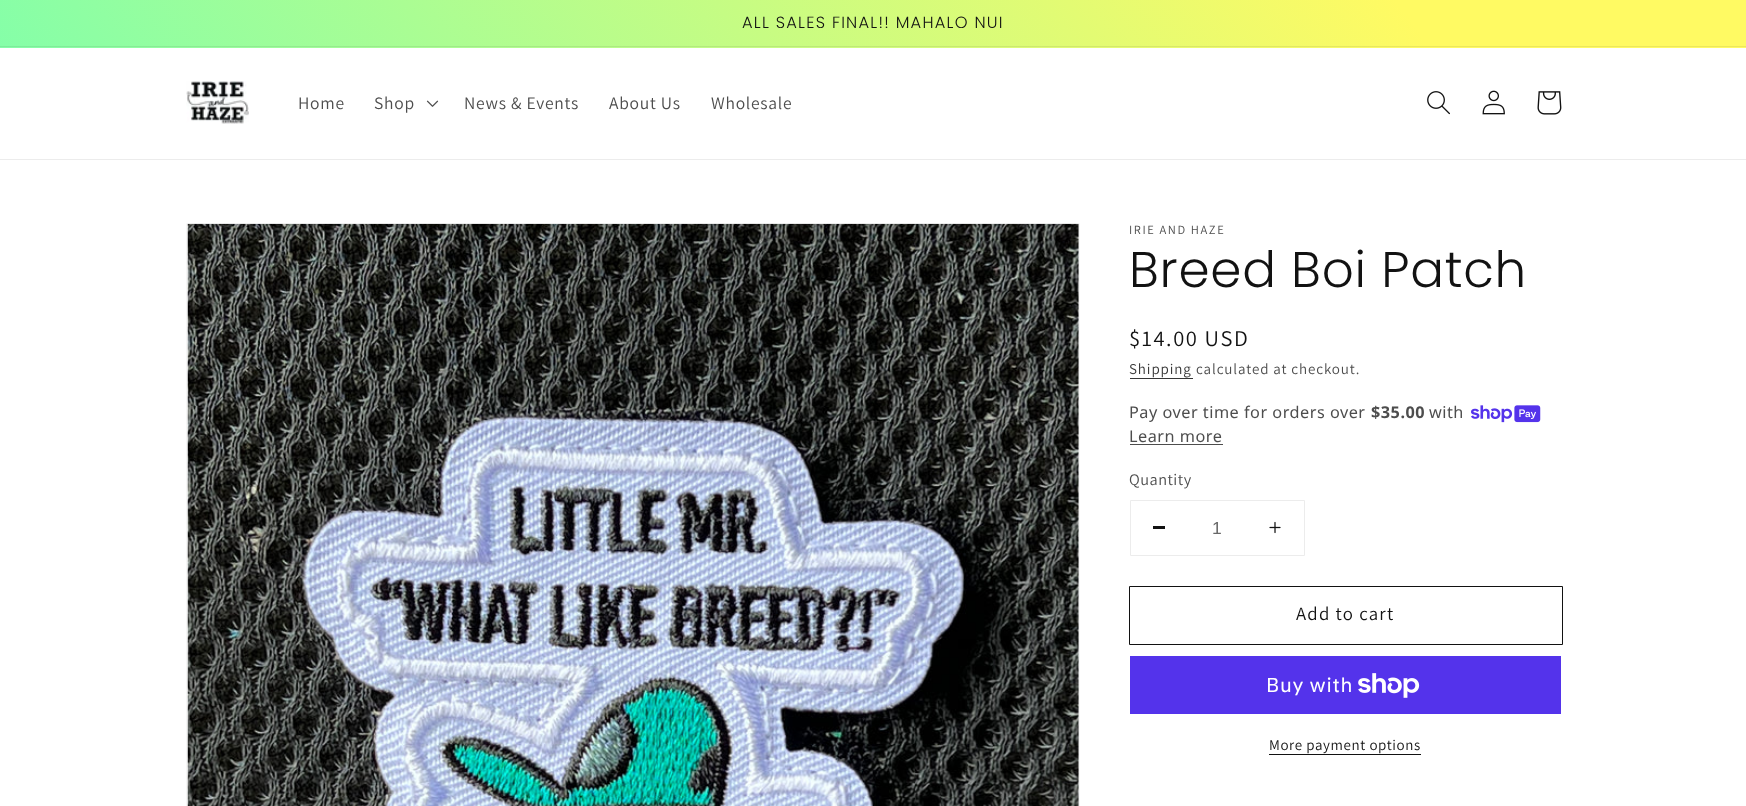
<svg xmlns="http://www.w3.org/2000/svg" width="1746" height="806">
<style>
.a{font:300 16.25px Poppins;letter-spacing:1.25px;fill:#121212}
.b{font:17.5px Assistant;letter-spacing:0.75px;fill:#4d4d4d}
.c{font:12.5px Assistant;letter-spacing:1.6px;fill:#4d4d4d}
.d{font:300 50px Poppins;letter-spacing:0.75px;fill:#121212}
.e{font:22.5px Assistant;letter-spacing:1.6px;fill:#121212}
.f{font:15px Assistant;letter-spacing:0.9px;fill:#363636}
.g{font:15px Assistant;letter-spacing:0.9px;fill:#4d4d4d}
.h{font:16.25px Noto Sans;letter-spacing:0.5px;fill:#4d4d4d}
.i{font:bold 16.25px Noto Sans;letter-spacing:0.5px;fill:#4d4d4d}
.j{font:16.25px Assistant;letter-spacing:0.5px;fill:#4d4d4d}
.k{font:17.5px Liberation Sans;fill:#686868}
.l{font:18.75px Assistant;letter-spacing:1.25px;fill:#121212}
.m{font:20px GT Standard;letter-spacing:0.75px;fill:#fff}
.n{font:15px Assistant;letter-spacing:0.6px;fill:#121212}
</style>
<defs>
<linearGradient id="g1" gradientUnits="userSpaceOnUse" x1="110" y1="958" x2="1636" y2="-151"><stop offset="0.14" stop-color="#72ffb3"/><stop offset="0.85" stop-color="#fffa63"/></linearGradient>
<linearGradient id="g2" gradientUnits="userSpaceOnUse" x1="110" y1="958" x2="1636" y2="-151"><stop offset="0.14" stop-color="#6aeca6"/><stop offset="0.85" stop-color="#ece75d"/></linearGradient>
</defs>
<rect width="100%" height="100%" fill="#fff"/>
<path fill="url(#g1)" d="M0 0h1746v48H0z"/>
<path fill="url(#g2)" d="M0 46h1746v1H0z"/>
<path fill="#ececec" d="M0 159h1746v1H0z"/>
<image href="1.png" x="186" y="81" width="63" height="43"/>
<image href="2.png" x="426" y="100" width="13" height="7"/>
<image href="3.png" x="1427" y="91" width="23" height="24"/>
<image href="4.png" x="1482" y="90" width="23" height="25"/>
<image href="5.png" x="1537" y="91" width="25" height="24"/>
<path fill="none" stroke="#f6f6f6" d="M186.5 223.5h893v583H186.5z"/>
<image href="6.png" x="187" y="223" width="892" height="583"/>
<path fill="#363636" d="M1130 378h63v1H1130z"/>
<image href="7.png" x="1471" y="405" width="70" height="18"/>
<path fill="#4d4d4d" d="M1130 444h93v1H1130z"/>
<path fill="none" stroke="#ececec" d="M1130.5 500.5h174v55H1130.5z"/>
<path fill="#121212" d="M1153 526h12v3H1153z"/>
<image href="8.png" x="1269" y="521" width="12" height="13"/>
<path fill="none" stroke="#121212" d="M1129.5 586.5h433v58H1129.5z"/>
<path fill="#5433eb" d="M1130 656h431v58H1130z"/>
<image href="9.png" x="1358" y="673" width="62" height="25"/>
<path fill="#121212" d="M1269 754h152v1H1269z"/>
<text class="a" x="742" y="28">ALL SALES FINAL!! MAHALO NUI</text>
<text class="b" x="298" y="109">Home</text>
<text class="b" x="374" y="109">Shop</text>
<text class="b" x="464" y="109">News &amp; Events</text>
<text class="b" x="609" y="109">About Us</text>
<text class="b" x="711" y="109">Wholesale</text>
<text class="c" x="1129" y="234">IRIE AND HAZE</text>
<text class="d" x="1129" y="287">Breed Boi Patch</text>
<text class="e" x="1129" y="346">$14.00 USD</text>
<text class="f" x="1129" y="374">Shipping</text>
<text class="g" x="1196" y="374">calculated at checkout.</text>
<text class="h" x="1129" y="418">Pay over time for orders over</text>
<text class="i" x="1371" y="418">$35.00</text>
<text class="h" x="1429" y="418">with</text>
<text class="h" x="1129" y="442">Learn more</text>
<text class="j" x="1129" y="485">Quantity</text>
<text class="k" x="1212" y="534">1</text>
<text class="l" x="1296" y="620">Add to cart</text>
<text class="m" x="1266" y="692">Buy with</text>
<text class="n" x="1269" y="750">More payment options</text>
</svg>
